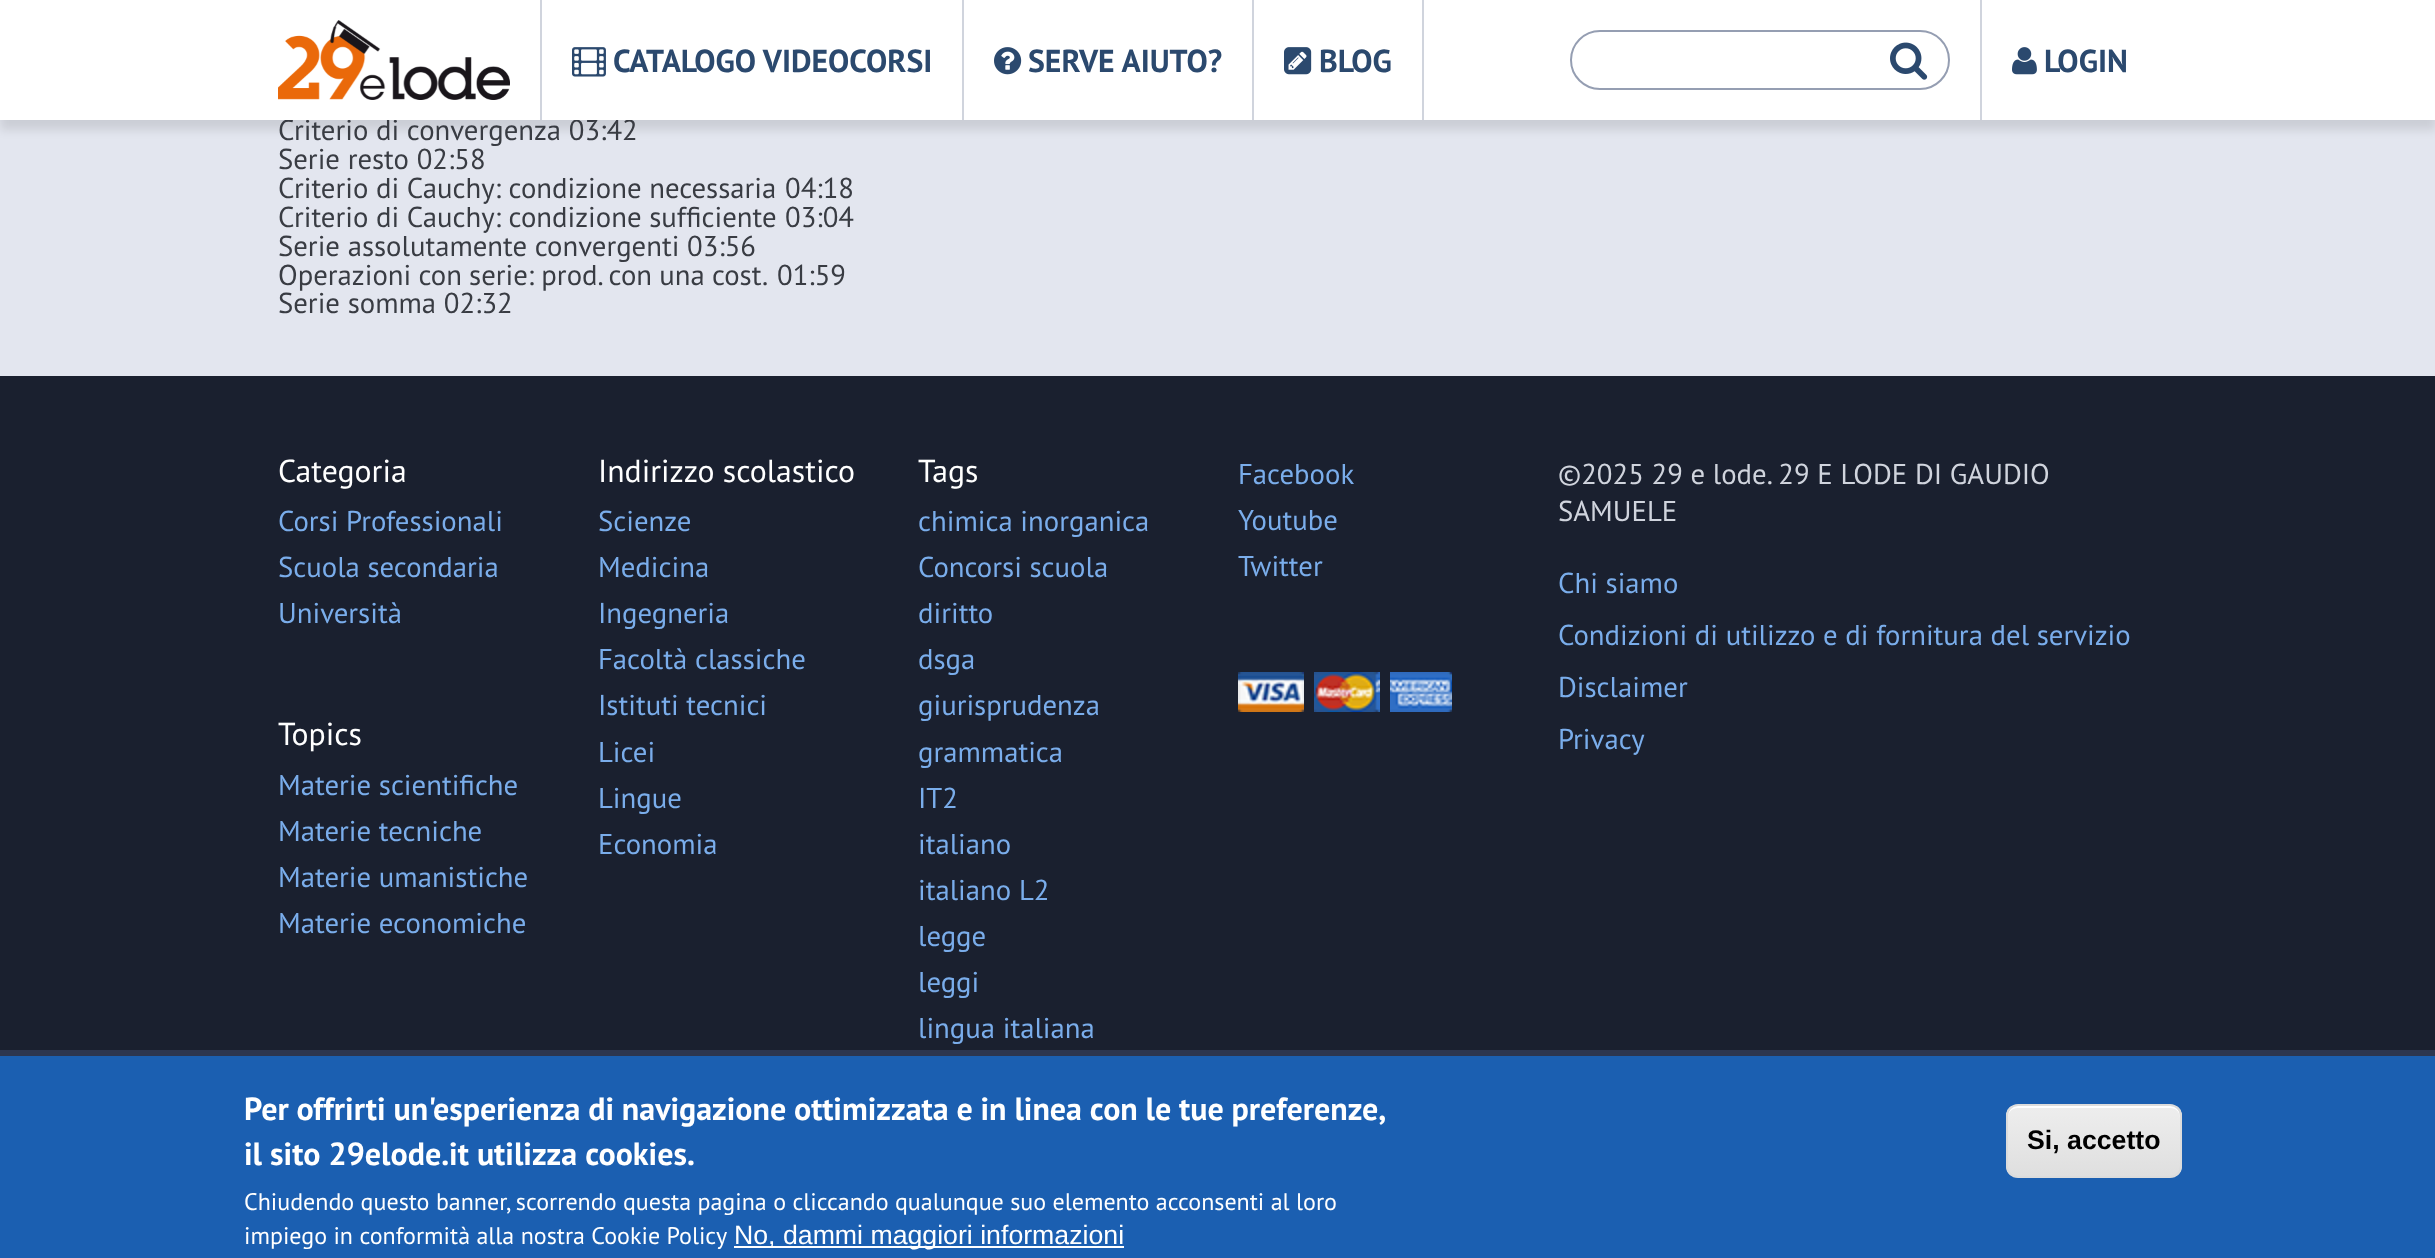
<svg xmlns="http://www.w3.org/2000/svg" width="2435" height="1258">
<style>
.a{font:28.75px PT Sans;fill:#393c43}
.b{font:bold 31.75px PT Sans;fill:#2b496e}
.c{font:31.75px PT Sans;fill:#fff}
.d{font:28.75px PT Sans;fill:#7aadeb}
.e{font:28.75px PT Sans;fill:#d0d4dd}
.f{font:bold 32px PT Sans;fill:#fff}
.g{font:24px PT Sans;fill:#fff}
.h{font:26.7px Liberation Sans;fill:#fff}
.i{font:bold 26.7px Liberation Sans;fill:#000}
</style>
<defs>
<clipPath id="clip1"><rect x="2006" y="1104" width="176" height="74" rx="12"/></clipPath>
<linearGradient id="g1" gradientUnits="userSpaceOnUse" x1="2094" y1="1106" x2="2094" y2="1176"><stop offset="0.05" stop-color="#ededed"/><stop offset="1" stop-color="#dfdfdf"/></linearGradient>
</defs>
<rect width="100%" height="100%" fill="#1a202f"/>
<path fill="#e3e6ef" d="M0 120h2435v256H0z"/>
<path fill="#0000001a" filter="blur(5px)" d="M0 10h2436v120H0z"/>
<image href="7.png" x="1238" y="672" width="66" height="40"/>
<image href="8.png" x="1314" y="672" width="66" height="40"/>
<image href="9.png" x="1390" y="672" width="62" height="40"/>
<path fill="#1b5fb1" d="M0 1056h2435v202H0z"/>
<path fill="#2d364f" d="M0 1050h2435v6H0z"/>
<path fill="#fff" d="M734 1246h390v2H734z"/>
<g clip-path="url(#clip1)">
<path fill="url(#g1)" d="M2006 1106h176v70H2006z"/>
</g>
<path fill="#fff" d="M2018 1108h152c6 0 10 4 10 10v-2c0-6-4-10-10-10h-152c-6 0-10 4-10 10v2c0-6 4-10 10-10z"/>
<rect fill="none" stroke="#dcdcdc" stroke-width="2" x="2007" y="1105" width="174" height="72" rx="11"/>
<text class="a" x="278" y="140">Criterio di convergenza 03:42</text>
<path fill="#fff" d="M0 0h2435v120H0z"/>
<rect fill="none" stroke="#959eb2" stroke-width="2" x="1571" y="31" width="378" height="58" rx="29"/>
<image href="5.png" x="1890" y="42" width="38" height="38"/>
<image href="1.png" x="278" y="20" width="232" height="80"/>
<text class="b" x="2044" y="72">LOGIN</text>
<image href="6.png" x="2012" y="47" width="25" height="28"/>
<path fill="#d0d4dd" d="M1980 0h2v120H1980z"/>
<text class="b" x="1319" y="72">BLOG</text>
<image href="4.png" x="1284" y="47" width="28" height="28"/>
<path fill="#d0d4dd" d="M1422 0h2v120H1422z"/>
<text class="b" x="1028" y="72">SERVE AIUTO?</text>
<image href="3.png" x="994" y="47" width="28" height="28"/>
<path fill="#d0d4dd" d="M1252 0h2v120H1252z"/>
<text class="b" x="613" y="72">CATALOGO VIDEOCORSI</text>
<image href="2.png" x="572" y="47" width="34" height="30"/>
<path fill="#d0d4dd" d="M962 0h2v120H962z"/>
<path fill="#d0d4dd" d="M540 0h2v120H540z"/>
<text class="a" x="278" y="169">Serie resto 02:58</text>
<text class="a" x="278" y="198">Criterio di Cauchy: condizione necessaria</text>
<text class="a" x="785" y="198">04:18</text>
<text class="a" x="278" y="227">Criterio di Cauchy: condizione sufficiente</text>
<text class="a" x="785" y="227">03:04</text>
<text class="a" x="278" y="256">Serie assolutamente convergenti 03:56</text>
<text class="a" x="278" y="285" word-spacing="-0.5">Operazioni con serie: prod. con una cost.</text>
<text class="a" x="777" y="285">01:59</text>
<text class="a" x="278" y="313">Serie somma 02:32</text>
<text class="c" x="278" y="482">Categoria</text>
<text class="d" x="278" y="531">Corsi Professionali</text>
<text class="d" x="278" y="577">Scuola secondaria</text>
<text class="d" x="278" y="623">Università</text>
<text class="c" x="278" y="745">Topics</text>
<text class="d" x="278" y="795">Materie scientifiche</text>
<text class="d" x="278" y="841">Materie tecniche</text>
<text class="d" x="278" y="887">Materie umanistiche</text>
<text class="d" x="278" y="933">Materie economiche</text>
<text class="c" x="598" y="482">Indirizzo scolastico</text>
<text class="d" x="598" y="531">Scienze</text>
<text class="d" x="598" y="577">Medicina</text>
<text class="d" x="598" y="623">Ingegneria</text>
<text class="d" x="598" y="669">Facoltà classiche</text>
<text class="d" x="598" y="715">Istituti tecnici</text>
<text class="d" x="598" y="762">Licei</text>
<text class="d" x="598" y="808">Lingue</text>
<text class="d" x="598" y="854">Economia</text>
<text class="c" x="918" y="482">Tags</text>
<text class="d" x="918" y="531">chimica inorganica</text>
<text class="d" x="918" y="577">Concorsi scuola</text>
<text class="d" x="918" y="623">diritto</text>
<text class="d" x="918" y="669">dsga</text>
<text class="d" x="918" y="715">giurisprudenza</text>
<text class="d" x="918" y="762">grammatica</text>
<text class="d" x="918" y="808">IT2</text>
<text class="d" x="918" y="854">italiano</text>
<text class="d" x="918" y="900">italiano L2</text>
<text class="d" x="918" y="946">legge</text>
<text class="d" x="918" y="992">leggi</text>
<text class="d" x="918" y="1038">lingua italiana</text>
<text class="d" x="1238" y="484">Facebook</text>
<text class="d" x="1238" y="530">Youtube</text>
<text class="d" x="1238" y="576">Twitter</text>
<text class="e" x="1558" y="484">©2025 29 e lode. 29 E LODE DI GAUDIO</text>
<text class="e" x="1558" y="521">SAMUELE</text>
<text class="d" x="1558" y="593">Chi siamo</text>
<text class="d" x="1558" y="645">Condizioni di utilizzo e di fornitura del servizio</text>
<text class="d" x="1558" y="697">Disclaimer</text>
<text class="d" x="1558" y="749">Privacy</text>
<text class="f" x="244" y="1120" word-spacing="-0.25">Per offrirti un'esperienza di navigazione ottimizzata e in linea con le tue preferenze,</text>
<text class="f" x="244" y="1165">il sito 29elode.it utilizza cookies.</text>
<text class="g" x="244" y="1210">Chiudendo questo banner, scorrendo questa pagina o cliccando qualunque suo elemento acconsenti al loro</text>
<text class="g" x="244" y="1244">impiego in conformità alla nostra Cookie Policy</text>
<text class="h" x="734" y="1244">No, dammi maggiori informazioni</text>
<text class="i" x="2027" y="1149">Si, accetto</text>
</svg>
